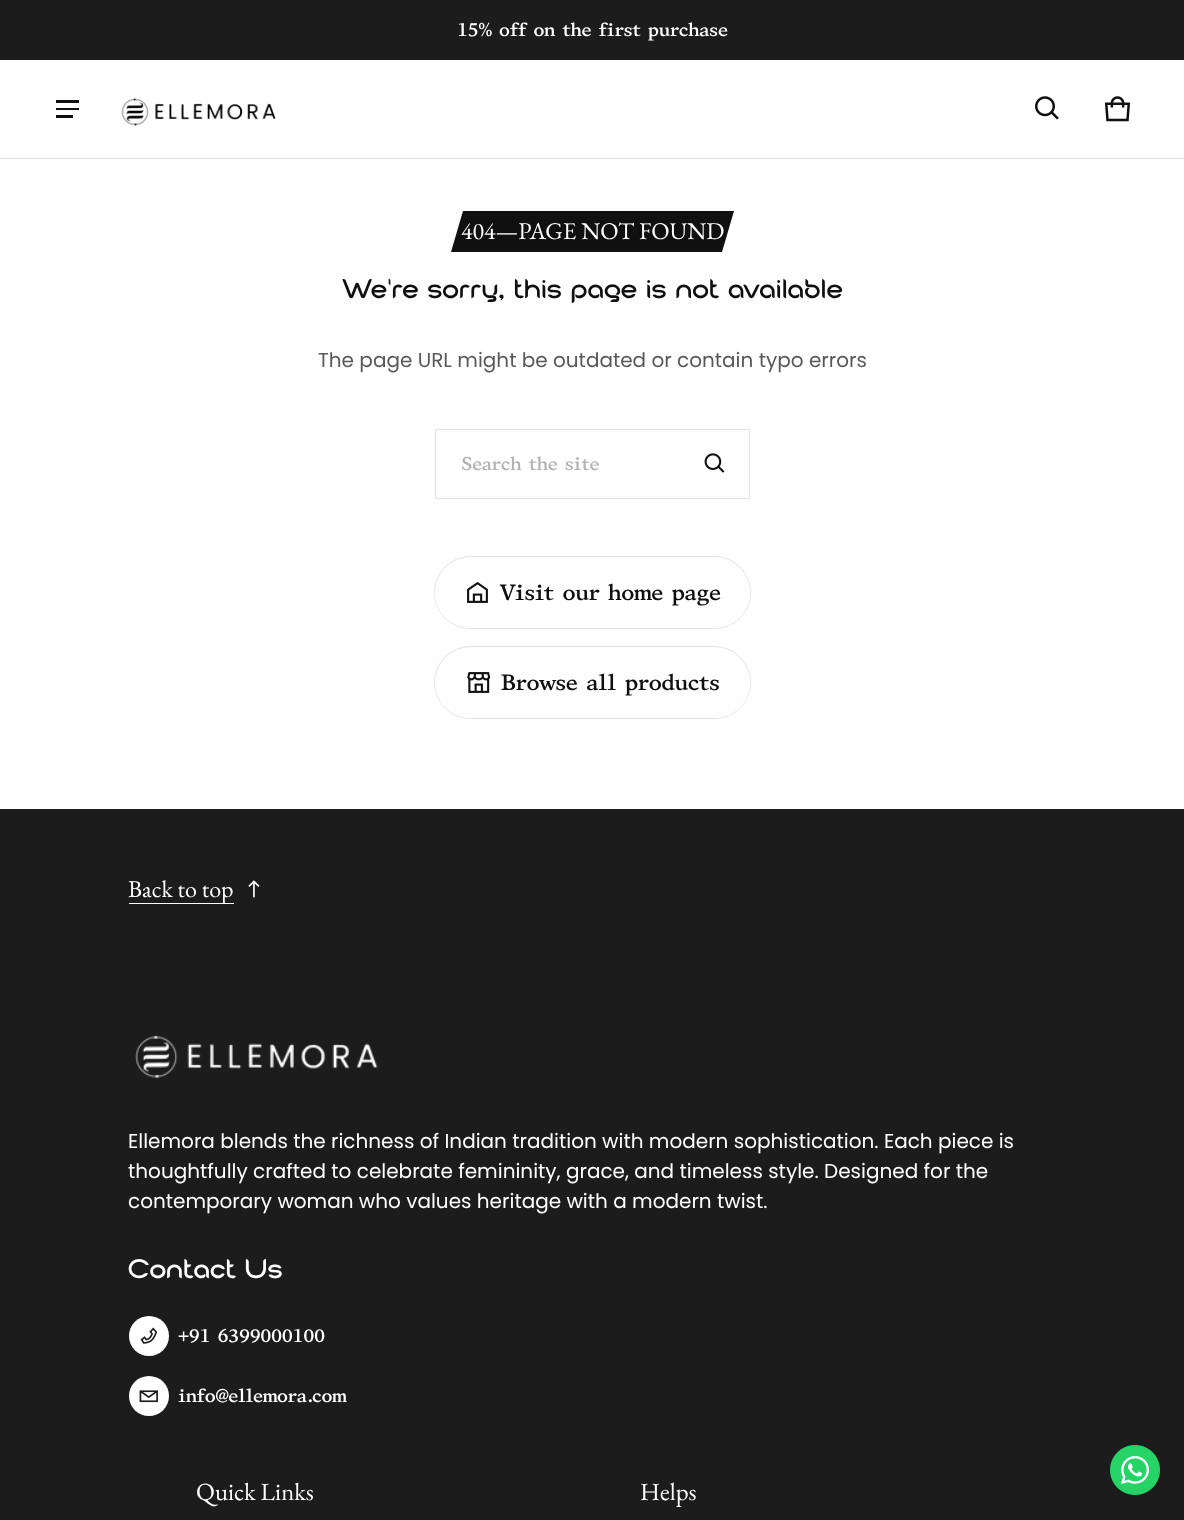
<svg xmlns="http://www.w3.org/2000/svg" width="1184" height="1520">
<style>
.a{font:100 20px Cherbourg;fill:#fff}
.b{font:24px EB Garamond;fill:#fff}
.c{font:bold 28.75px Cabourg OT;fill:#101010}
.d{font:20px Poppins;fill:#595959}
.e{font:100 20px Cherbourg;fill:#b3b3b3}
.f{font:100 24px Cherbourg;fill:#101010}
.g{font:20px Poppins;fill:#fff}
.h{font:bold 28.75px Cabourg OT;fill:#fff}
.i{font:24.75px EB Garamond;fill:#fff}
</style>
<rect width="100%" height="100%" fill="#fff"/>
<path fill="#1c1c1c" d="M0 0h1184v60H0z"/>
<path fill="#e2e2e2" d="M0 158h1184v1H0z"/>
<path fill="#101010" d="M56 100h23v3H56z"/>
<path fill="#101010" d="M56 108h23v2H56z"/>
<path fill="#101010" d="M56 115h17v3H56z"/>
<image href="1.png" x="121" y="98" width="155" height="28"/>
<image href="2.png" x="1035" y="96" width="24" height="24"/>
<image href="3.png" x="1104" y="96" width="27" height="26"/>
<path fill="#101010" d="M463 211h271l-12 41h-271z"/>
<path fill="none" stroke="#e2e2e2" d="M435.5 429.5h314v69H435.5z"/>
<image href="4.png" x="704" y="453" width="21" height="20"/>
<rect fill="none" stroke="#e2e2e2" x="434.5" y="556.5" width="316" height="72" rx="36"/>
<rect fill="#fff" x="435" y="558" width="315" height="70" rx="35"/>
<image href="5.png" x="467" y="581" width="21" height="22"/>
<rect fill="none" stroke="#e2e2e2" x="434.5" y="646.5" width="316" height="72" rx="36"/>
<rect fill="#fff" x="435" y="648" width="315" height="70" rx="35"/>
<image href="6.png" x="467" y="672" width="24" height="21"/>
<path fill="#1c1c1c" d="M0 809h1184v711H0z"/>
<path fill="#fff" d="M129 903h105v1H129z"/>
<image href="7.png" x="248" y="880" width="12" height="18"/>
<image href="8.png" x="135" y="1035" width="243" height="44"/>
<circle fill="#fff" cx="149" cy="1336" r="20"/>
<image href="9.png" x="140" y="1327" width="18" height="17"/>
<circle fill="#fff" cx="149" cy="1396" r="20"/>
<image href="10.png" x="139" y="1390" width="19" height="13"/>
<image href="11.png" x="1110" y="1445" width="50" height="50"/>
<text class="a" x="457" y="36">15% off on the first purchase</text>
<text class="b" x="461" y="239">404—PAGE NOT FOUND</text>
<text class="c" x="342" y="298">We're sorry, this page is not available</text>
<text class="d" x="318" y="367">The page URL might be outdated or contain typo errors</text>
<text class="e" x="461" y="470">Search the site</text>
<text class="f" x="500" y="600">Visit our home page</text>
<text class="f" x="501" y="690">Browse all products</text>
<text class="b" x="128" y="897">Back to top</text>
<text class="g" x="128" y="1148">Ellemora blends the richness of Indian tradition with modern sophistication. Each piece is</text>
<text class="g" x="128" y="1178">thoughtfully crafted to celebrate femininity, grace, and timeless style. Designed for the</text>
<text class="g" x="128" y="1208">contemporary woman who values heritage with a modern twist.</text>
<text class="h" x="128" y="1278">Contact Us</text>
<text class="a" x="178" y="1342">+91 6399000100</text>
<text class="a" x="178" y="1402">info@ellemora.com</text>
<text class="i" x="196" y="1500">Quick Links</text>
<text class="i" x="640" y="1500">Helps</text>
</svg>
